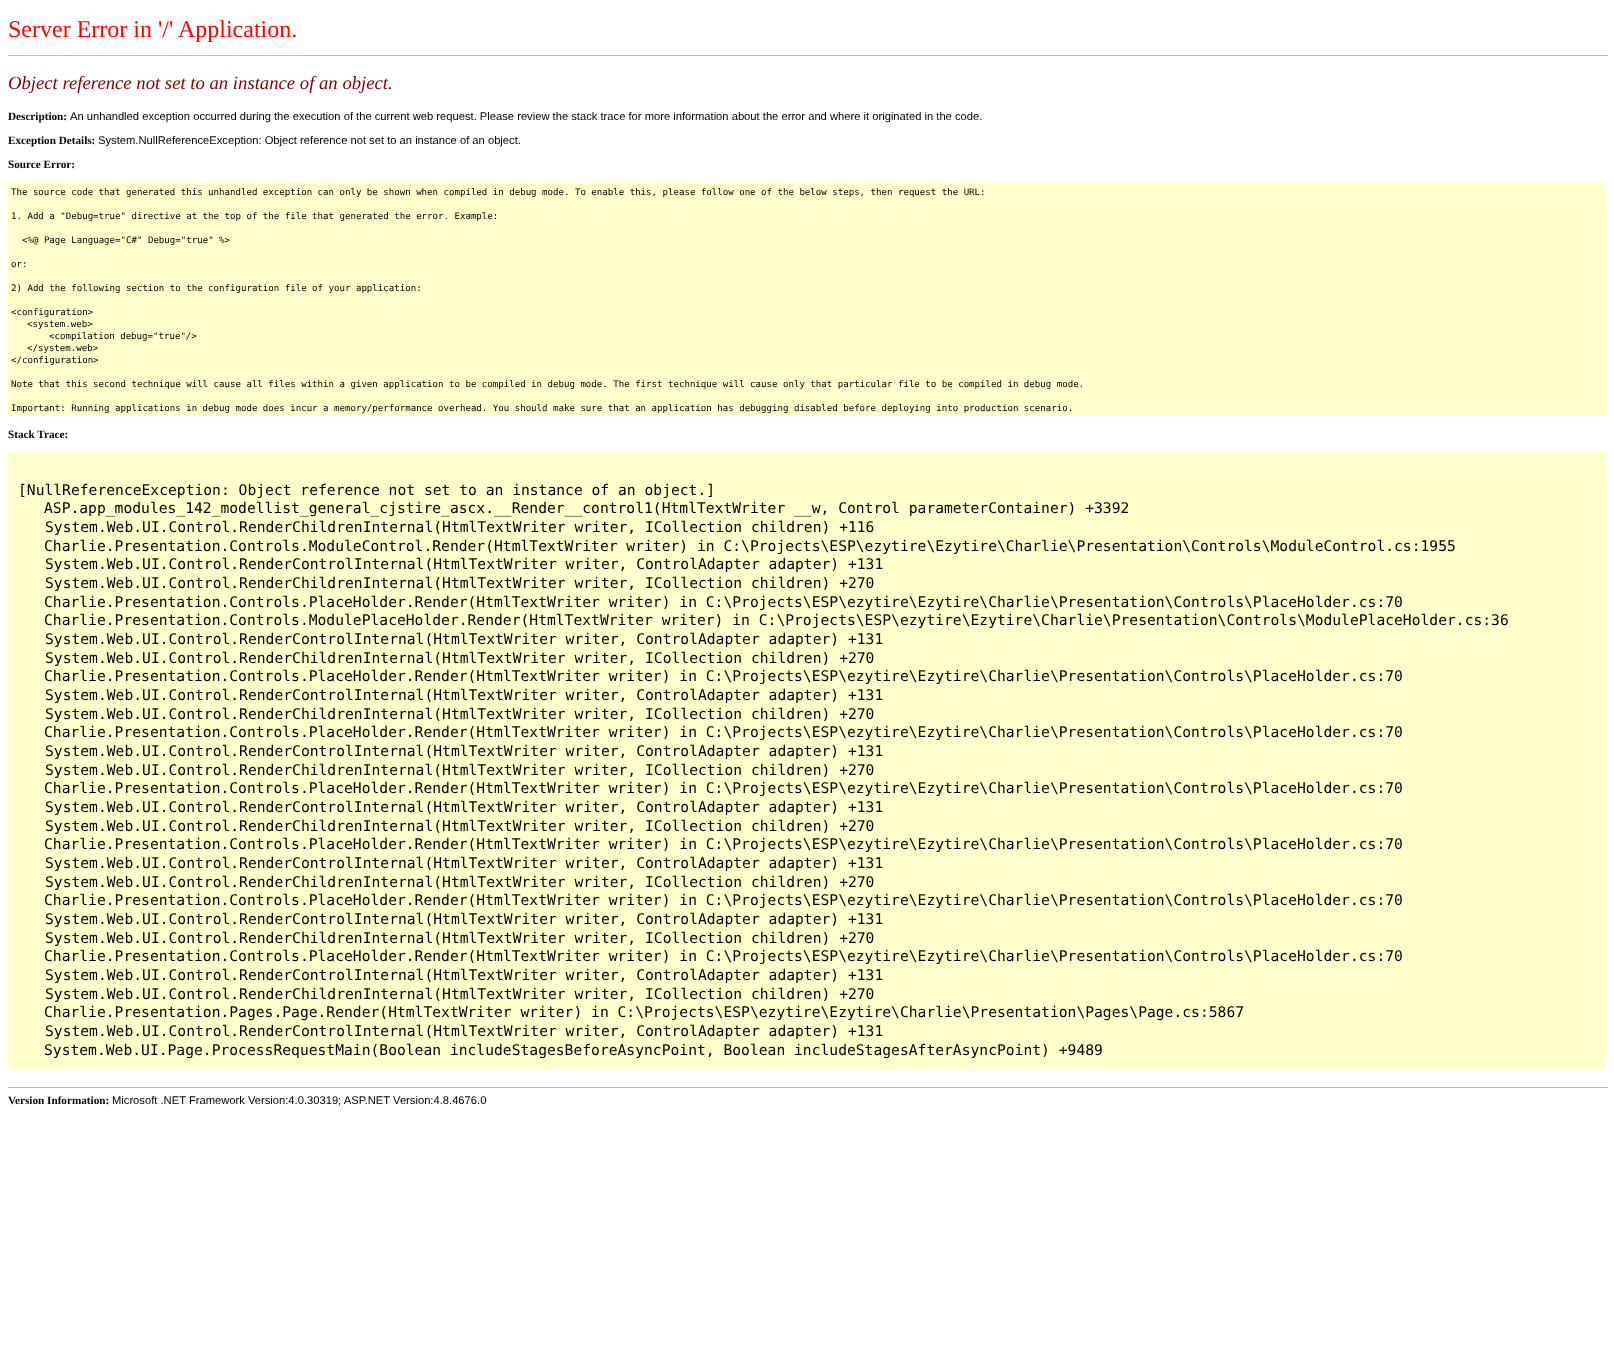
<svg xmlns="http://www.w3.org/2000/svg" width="1614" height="1357">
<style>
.a{font:24px Liberation Serif;fill:#f00}
.b{font:italic 18.7px Liberation Serif;fill:#800000}
.c{font:bold 11.2px Liberation Serif;fill:#000}
.d{font:11.2px Liberation Sans;fill:#000}
.e{font:9.1px DejaVu Sans Mono;fill:#000}
.f{font:14.67px DejaVu Sans Mono;fill:#000}
</style>
<rect width="100%" height="100%" fill="#fff"/>
<path fill="#c0c0c0" d="M8 55h1600v1H8z"/>
<path fill="#ffc" d="M8 182h1598v234H8z"/>
<path fill="#ffc" d="M8 452h1598v618H8z"/>
<path fill="#c0c0c0" d="M8 1087h1600v1H8z"/>
<text class="a" x="8" y="37">Server Error in '/' Application.</text>
<text class="b" x="8" y="89">Object reference not set to an instance of an object.</text>
<text class="c" x="8" y="120">Description:</text>
<text class="d" x="70" y="120">An unhandled exception occurred during the execution of the current web request. Please review the stack trace for more information about the error and where it originated in the code.</text>
<text class="c" x="8" y="144">Exception Details:</text>
<text class="d" x="98" y="144">System.NullReferenceException: Object reference not set to an instance of an object.</text>
<text class="c" x="8" y="168">Source Error:</text>
<text class="e" x="11" y="195">The source code that generated this unhandled exception can only be shown when compiled in debug mode. To enable this, please follow one of the below steps, then request the URL:</text>
<text class="e" x="11" y="219">1. Add a "Debug=true" directive at the top of the file that generated the error. Example:</text>
<text class="e" x="22" y="243">&lt;%@ Page Language="C#" Debug="true" %&gt;</text>
<text class="e" x="11" y="267">or:</text>
<text class="e" x="11" y="291">2) Add the following section to the configuration file of your application:</text>
<text class="e" x="11" y="315">&lt;configuration&gt;</text>
<text class="e" x="27" y="327">&lt;system.web&gt;</text>
<text class="e" x="49" y="339">&lt;compilation debug="true"/&gt;</text>
<text class="e" x="27" y="351">&lt;/system.web&gt;</text>
<text class="e" x="11" y="363">&lt;/configuration&gt;</text>
<text class="e" x="11" y="387">Note that this second technique will cause all files within a given application to be compiled in debug mode. The first technique will cause only that particular file to be compiled in debug mode.</text>
<text class="e" x="11" y="411">Important: Running applications in debug mode does incur a memory/performance overhead. You should make sure that an application has debugging disabled before deploying into production scenario.</text>
<text class="c" x="8" y="438">Stack Trace:</text>
<text class="f" x="18" y="495">[NullReferenceException: Object reference not set to an instance of an object.]</text>
<text class="f" x="44" y="513">ASP.app_modules_142_modellist_general_cjstire_ascx.__Render__control1(HtmlTextWriter __w, Control parameterContainer) +3392</text>
<text class="f" x="45" y="532">System.Web.UI.Control.RenderChildrenInternal(HtmlTextWriter writer, ICollection children) +116</text>
<text class="f" x="44" y="551">Charlie.Presentation.Controls.ModuleControl.Render(HtmlTextWriter writer) in C:\Projects\ESP\ezytire\Ezytire\Charlie\Presentation\Controls\ModuleControl.cs:1955</text>
<text class="f" x="45" y="569">System.Web.UI.Control.RenderControlInternal(HtmlTextWriter writer, ControlAdapter adapter) +131</text>
<text class="f" x="45" y="588">System.Web.UI.Control.RenderChildrenInternal(HtmlTextWriter writer, ICollection children) +270</text>
<text class="f" x="44" y="607">Charlie.Presentation.Controls.PlaceHolder.Render(HtmlTextWriter writer) in C:\Projects\ESP\ezytire\Ezytire\Charlie\Presentation\Controls\PlaceHolder.cs:70</text>
<text class="f" x="44" y="625">Charlie.Presentation.Controls.ModulePlaceHolder.Render(HtmlTextWriter writer) in C:\Projects\ESP\ezytire\Ezytire\Charlie\Presentation\Controls\ModulePlaceHolder.cs:36</text>
<text class="f" x="45" y="644">System.Web.UI.Control.RenderControlInternal(HtmlTextWriter writer, ControlAdapter adapter) +131</text>
<text class="f" x="45" y="663">System.Web.UI.Control.RenderChildrenInternal(HtmlTextWriter writer, ICollection children) +270</text>
<text class="f" x="44" y="681">Charlie.Presentation.Controls.PlaceHolder.Render(HtmlTextWriter writer) in C:\Projects\ESP\ezytire\Ezytire\Charlie\Presentation\Controls\PlaceHolder.cs:70</text>
<text class="f" x="45" y="700">System.Web.UI.Control.RenderControlInternal(HtmlTextWriter writer, ControlAdapter adapter) +131</text>
<text class="f" x="45" y="719">System.Web.UI.Control.RenderChildrenInternal(HtmlTextWriter writer, ICollection children) +270</text>
<text class="f" x="44" y="737">Charlie.Presentation.Controls.PlaceHolder.Render(HtmlTextWriter writer) in C:\Projects\ESP\ezytire\Ezytire\Charlie\Presentation\Controls\PlaceHolder.cs:70</text>
<text class="f" x="45" y="756">System.Web.UI.Control.RenderControlInternal(HtmlTextWriter writer, ControlAdapter adapter) +131</text>
<text class="f" x="45" y="775">System.Web.UI.Control.RenderChildrenInternal(HtmlTextWriter writer, ICollection children) +270</text>
<text class="f" x="44" y="793">Charlie.Presentation.Controls.PlaceHolder.Render(HtmlTextWriter writer) in C:\Projects\ESP\ezytire\Ezytire\Charlie\Presentation\Controls\PlaceHolder.cs:70</text>
<text class="f" x="45" y="812">System.Web.UI.Control.RenderControlInternal(HtmlTextWriter writer, ControlAdapter adapter) +131</text>
<text class="f" x="45" y="831">System.Web.UI.Control.RenderChildrenInternal(HtmlTextWriter writer, ICollection children) +270</text>
<text class="f" x="44" y="849">Charlie.Presentation.Controls.PlaceHolder.Render(HtmlTextWriter writer) in C:\Projects\ESP\ezytire\Ezytire\Charlie\Presentation\Controls\PlaceHolder.cs:70</text>
<text class="f" x="45" y="868">System.Web.UI.Control.RenderControlInternal(HtmlTextWriter writer, ControlAdapter adapter) +131</text>
<text class="f" x="45" y="887">System.Web.UI.Control.RenderChildrenInternal(HtmlTextWriter writer, ICollection children) +270</text>
<text class="f" x="44" y="905">Charlie.Presentation.Controls.PlaceHolder.Render(HtmlTextWriter writer) in C:\Projects\ESP\ezytire\Ezytire\Charlie\Presentation\Controls\PlaceHolder.cs:70</text>
<text class="f" x="45" y="924">System.Web.UI.Control.RenderControlInternal(HtmlTextWriter writer, ControlAdapter adapter) +131</text>
<text class="f" x="45" y="943">System.Web.UI.Control.RenderChildrenInternal(HtmlTextWriter writer, ICollection children) +270</text>
<text class="f" x="44" y="961">Charlie.Presentation.Controls.PlaceHolder.Render(HtmlTextWriter writer) in C:\Projects\ESP\ezytire\Ezytire\Charlie\Presentation\Controls\PlaceHolder.cs:70</text>
<text class="f" x="45" y="980">System.Web.UI.Control.RenderControlInternal(HtmlTextWriter writer, ControlAdapter adapter) +131</text>
<text class="f" x="45" y="999">System.Web.UI.Control.RenderChildrenInternal(HtmlTextWriter writer, ICollection children) +270</text>
<text class="f" x="44" y="1017">Charlie.Presentation.Pages.Page.Render(HtmlTextWriter writer) in C:\Projects\ESP\ezytire\Ezytire\Charlie\Presentation\Pages\Page.cs:5867</text>
<text class="f" x="45" y="1036">System.Web.UI.Control.RenderControlInternal(HtmlTextWriter writer, ControlAdapter adapter) +131</text>
<text class="f" x="44" y="1055">System.Web.UI.Page.ProcessRequestMain(Boolean includeStagesBeforeAsyncPoint, Boolean includeStagesAfterAsyncPoint) +9489</text>
<text class="c" x="8" y="1104">Version Information:</text>
<text class="d" x="112" y="1104">Microsoft .NET Framework Version:4.0.30319; ASP.NET Version:4.8.4676.0</text>
</svg>
